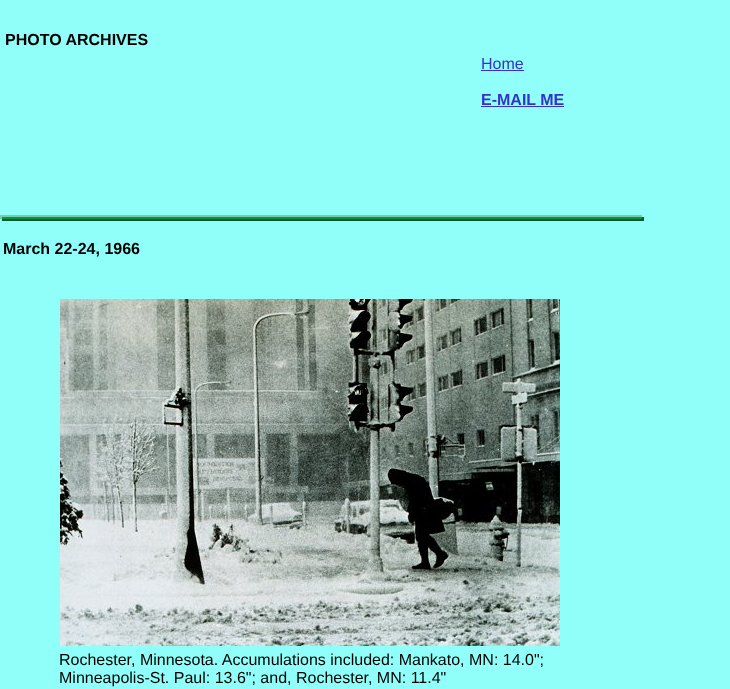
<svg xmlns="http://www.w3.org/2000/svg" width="730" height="689">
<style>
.a{font:bold 16px Liberation Sans;fill:#000}
.b{font:16px Liberation Sans;fill:#33c}
.c{font:bold 16px Liberation Sans;fill:#33c}
.d{font:16px Liberation Sans;fill:#000}
</style>
<rect width="100%" height="100%" fill="#91fff9"/>
<path fill="#33c" d="M481 70h43v1H481z"/>
<path fill="#33c" d="M481 106h83v1H481z"/>
<path fill="#7acca3" d="M0 215h642v2H0z"/>
<path fill="#7acca3" d="M0 217h2v2H0z"/>
<path fill="#00964b" d="M2 217h640v2H2z"/>
<path fill="#00582c" d="M642 217h2v2H642z"/>
<path fill="#00582c" d="M2 219h642v2H2z"/>
<image href="1.png" x="60" y="299" width="500" height="347"/>
<text class="a" x="5" y="45">PHOTO ARCHIVES</text>
<text class="b" x="481" y="69">Home</text>
<text class="c" x="481" y="105">E-MAIL ME</text>
<text class="a" x="3" y="254">March 22-24, 1966</text>
<text class="d" x="59" y="665">Rochester, Minnesota. Accumulations included: Mankato, MN: 14.0";</text>
<text class="d" x="59" y="683">Minneapolis-St. Paul: 13.6"; and, Rochester, MN: 11.4"</text>
</svg>
